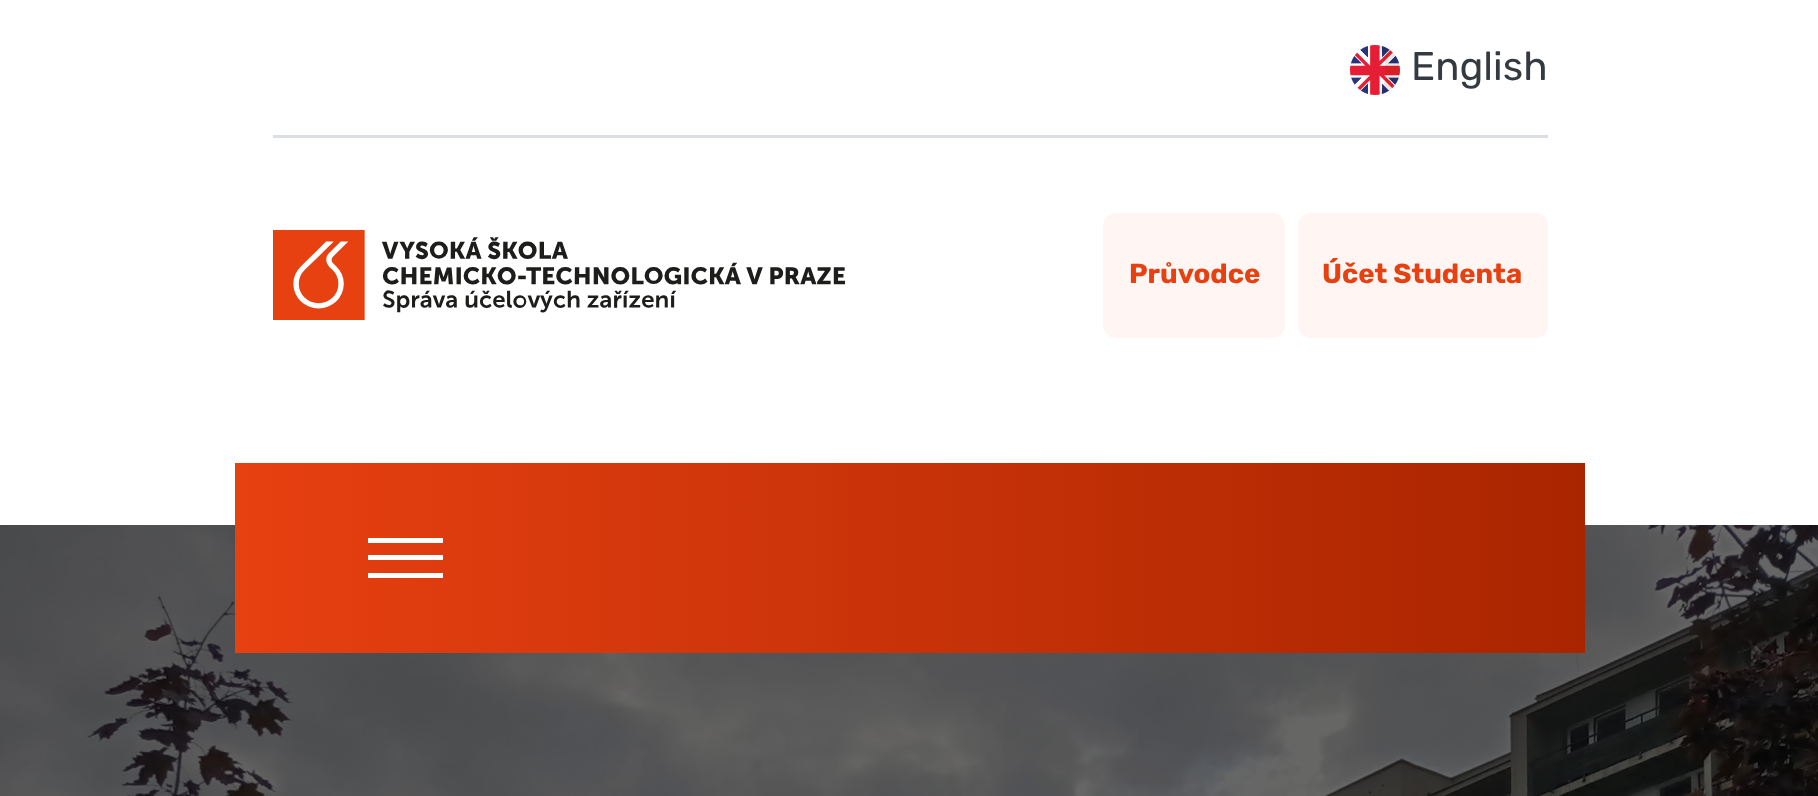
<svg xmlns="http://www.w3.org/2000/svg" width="1818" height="796">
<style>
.a{font:40px Rubik;fill:#343a40}
.b{font:bold 27.5px Rubik;fill:#e74011}
</style>
<defs>
<linearGradient id="g1" gradientUnits="userSpaceOnUse" x1="235" y1="558" x2="1585" y2="557"><stop offset="0" stop-color="#e74011"/><stop offset="1" stop-color="#a92500"/></linearGradient>
</defs>
<rect width="100%" height="100%" fill="#fff"/>
<path fill="#dbdfe3" d="M273 135h1275v3H273z"/>
<image href="1.png" x="1350" y="45" width="50" height="50"/>
<image href="2.png" x="273" y="230" width="572" height="90"/>
<rect fill="#fff5f2" x="1103" y="213" width="182" height="125" rx="13"/>
<rect fill="#fff5f2" x="1298" y="213" width="250" height="125" rx="13"/>
<image href="3.png" x="0" y="525" width="1818" height="271"/>
<path fill="url(#g1)" d="M235 463h1350v190H235z"/>
<path fill="#fff" d="M368 538h75v5H368z"/>
<path fill="#fff" d="M368 555h75v5H368z"/>
<path fill="#fff" d="M368 573h75v5H368z"/>
<text class="a" x="1411" y="80">English</text>
<text class="b" x="1129" y="283">Průvodce</text>
<text class="b" x="1322" y="283">Účet Studenta</text>
</svg>
